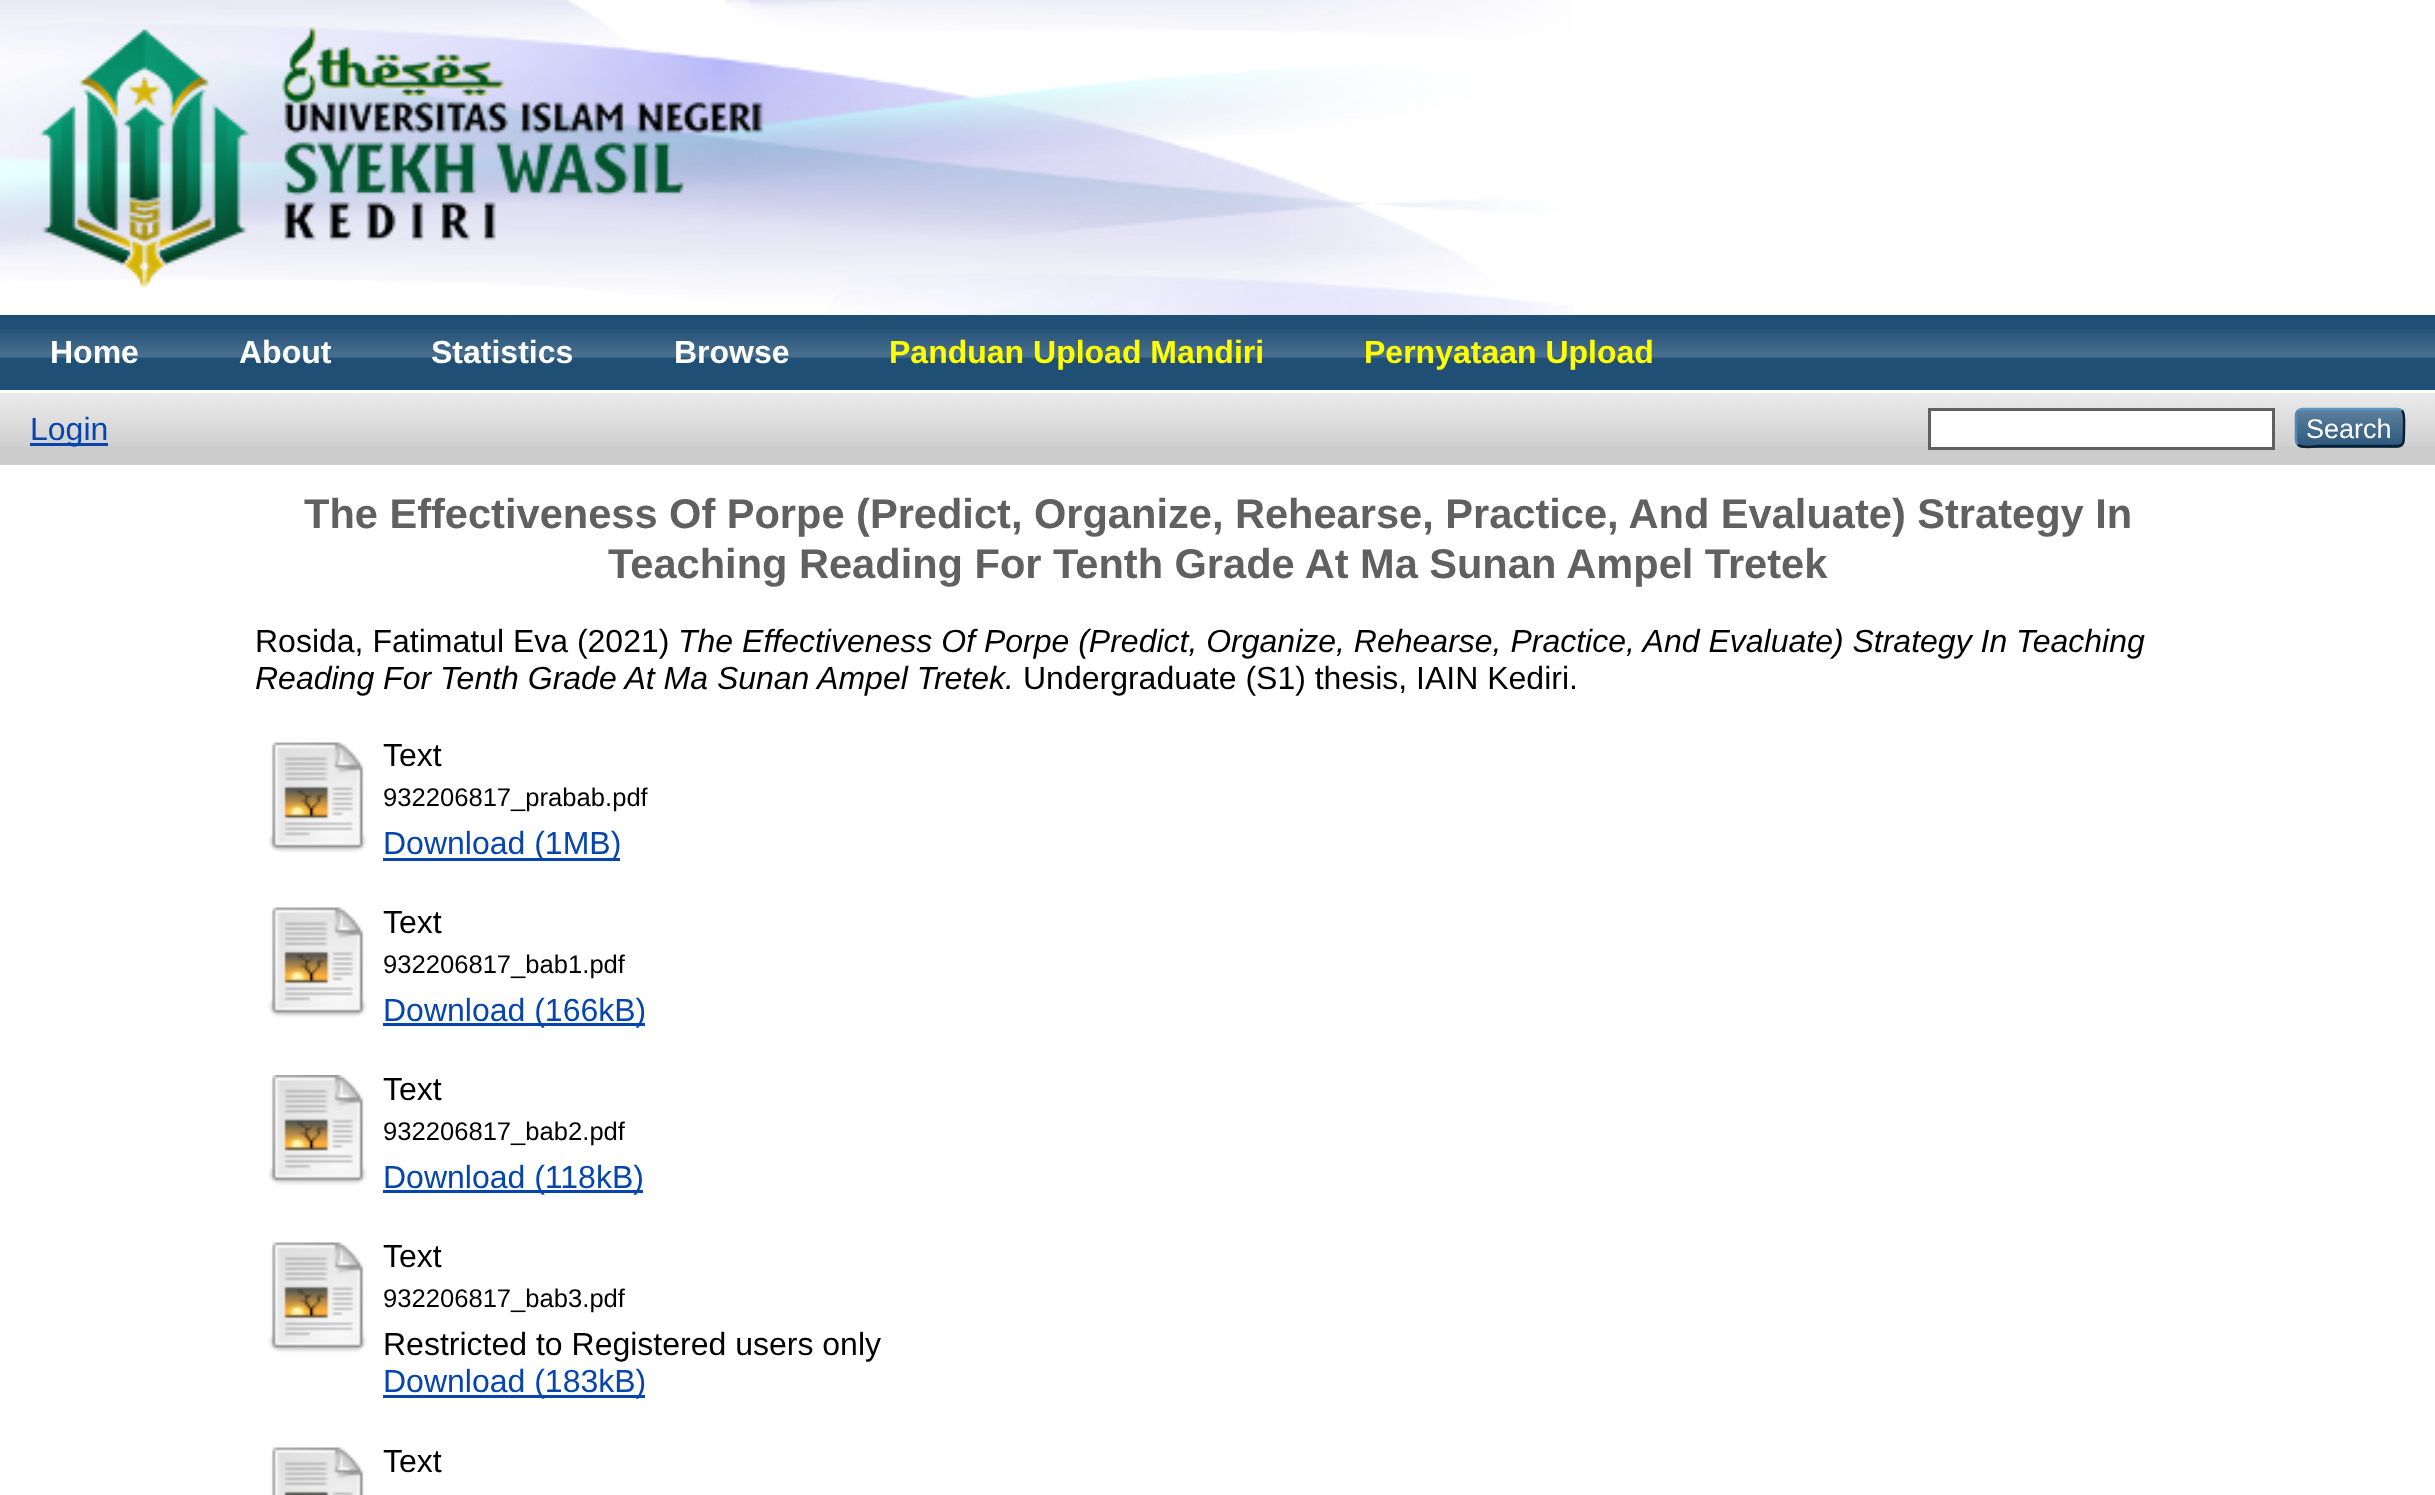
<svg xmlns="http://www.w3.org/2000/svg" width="2435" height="1495">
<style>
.a{font:bold 32px Liberation Sans;fill:#fff}
.b{font:bold 32px Liberation Sans;fill:#ff0}
.c{font:32px Liberation Sans;fill:#0645ad}
.d{font:27px Liberation Sans;fill:#fff}
.e{font:bold 41.6px Liberation Sans;fill:#606060}
.f{font:32px Liberation Sans;fill:#000}
.g{font:italic 32px Liberation Sans;fill:#000}
.h{font:25.6px Liberation Sans;fill:#000}
</style>
<rect width="100%" height="100%" fill="#fff"/>
<image href="1.png" x="0" y="0" width="1574" height="315"/>
<image href="2.png" x="39" y="27" width="725" height="262"/>
<path fill="#204f76" d="M0 315h2435v75H0z"/>
<image href="3.png" x="0" y="329" width="2435" height="30"/>
<path fill="#ccc" d="M0 393h2435v72H0z"/>
<image href="4.png" x="0" y="393" width="2435" height="53"/>
<path fill="#0645ad" d="M30 443h78v3H30z"/>
<path fill="#fff" stroke="#606060" stroke-width="3" d="M1929.5 409.5h344v39H1929.5z"/>
<rect fill="#1f4f76" x="2295" y="408" width="110" height="40" rx="8"/>
<image href="5.png" x="2295" y="408" width="110" height="39"/>
<path fill="none" stroke="#5b97c7" stroke-width="2.5" d="M2298 410.5c1.5-1 3-1.5 4.5-1.5h95c1.5 0 3 .5 4.5 1.5"/>
<path fill="none" stroke="#0d2131" stroke-width="2.5" d="M2402 410.5c3 3.5 2 13 2 17c0 21.5 1 18.5-22.5 18.5h-63c-1.5 0-16 3-20.5-1.5"/>
<path fill="none" stroke="#5287b3" stroke-width="2.5" d="M2298 444.5c-1-1.5-2-3-2-4.5v-25c0-1.5 1-3 2-4.5"/>
<image href="6.png" x="268" y="742" width="99" height="111"/>
<path fill="#0645ad" d="M383 858h237v3H383z"/>
<image href="6.png" x="268" y="907" width="99" height="111"/>
<path fill="#0645ad" d="M383 1023h262v3H383z"/>
<image href="7.png" x="268" y="1075" width="99" height="110"/>
<path fill="#0645ad" d="M383 1190h260v3H383z"/>
<image href="6.png" x="268" y="1242" width="99" height="111"/>
<path fill="#0645ad" d="M383 1395h262v3H383z"/>
<image href="8.png" x="271" y="1447" width="93" height="48"/>
<text class="a" x="50" y="363">Home</text>
<text class="a" x="239" y="363">About</text>
<text class="a" x="431" y="363">Statistics</text>
<text class="a" x="674" y="363">Browse</text>
<text class="b" x="889" y="363">Panduan Upload Mandiri</text>
<text class="b" x="1364" y="363">Pernyataan Upload</text>
<text class="c" x="30" y="440">Login</text>
<text class="d" x="2306" y="438">Search</text>
<text class="e" x="304" y="528" word-spacing="-0.1">The Effectiveness Of Porpe (Predict, Organize, Rehearse, Practice, And Evaluate) Strategy In</text>
<text class="e" x="608" y="578" word-spacing="-0.1">Teaching Reading For Tenth Grade At Ma Sunan Ampel Tretek</text>
<text class="f" x="255" y="652">Rosida, Fatimatul Eva (2021)</text>
<text class="g" x="678" y="652">The Effectiveness Of Porpe (Predict, Organize, Rehearse, Practice, And Evaluate) Strategy In Teaching</text>
<text class="g" x="255" y="689">Reading For Tenth Grade At Ma Sunan Ampel Tretek.</text>
<text class="f" x="1023" y="689">Undergraduate (S1) thesis, IAIN Kediri.</text>
<text class="f" x="383" y="766">Text</text>
<text class="h" x="383" y="806">932206817_prabab.pdf</text>
<text class="c" x="383" y="854">Download (1MB)</text>
<text class="f" x="383" y="933">Text</text>
<text class="h" x="383" y="973">932206817_bab1.pdf</text>
<text class="c" x="383" y="1021">Download (166kB)</text>
<text class="f" x="383" y="1100">Text</text>
<text class="h" x="383" y="1140">932206817_bab2.pdf</text>
<text class="c" x="383" y="1188">Download (118kB)</text>
<text class="f" x="383" y="1267">Text</text>
<text class="h" x="383" y="1307">932206817_bab3.pdf</text>
<text class="f" x="383" y="1355">Restricted to Registered users only</text>
<text class="c" x="383" y="1392">Download (183kB)</text>
<text class="f" x="383" y="1472">Text</text>
</svg>
